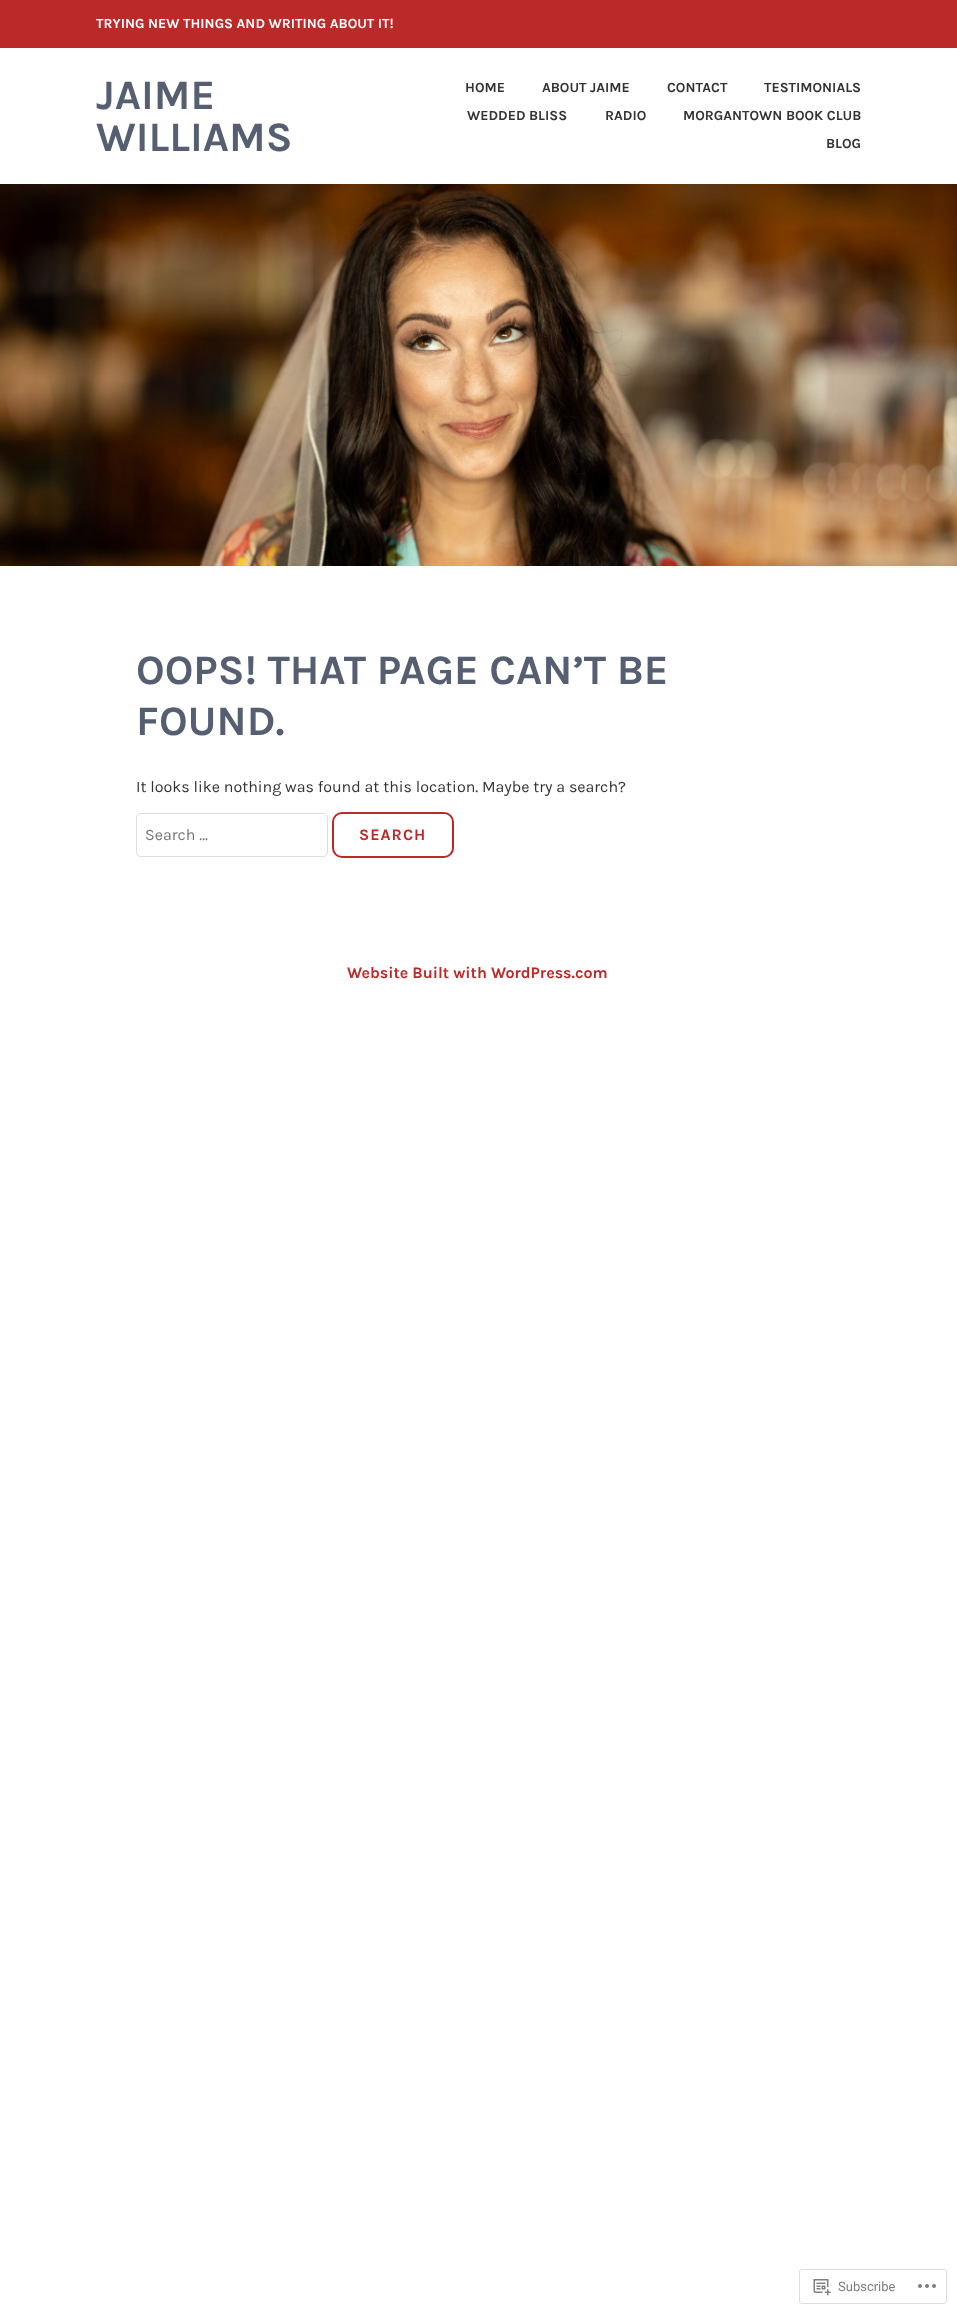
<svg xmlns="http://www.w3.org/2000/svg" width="957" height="2314">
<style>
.a{font:bold 14px Karla;fill:#fff}
.b{font:bold 42px Karla;fill:#565e71}
.c{font:bold 14px Karla;fill:#333}
.d{font:16px Karla;fill:#333}
.e{font:16px Karla;fill:#757575}
.f{font:bold 16px Karla;letter-spacing:1px;fill:#bc2929}
.g{font:bold 16px Karla;fill:#bc2929}
.h{font:13px Roboto;fill:#7b7f85}
</style>
<rect width="100%" height="100%" fill="#fff"/>
<path fill="#bc2929" d="M0 0h957v48H0z"/>
<image href="1.png" x="0" y="184" width="957" height="382"/>
<rect fill="none" stroke="#ddd" x="136.5" y="813.5" width="191" height="43" rx="4.5"/>
<rect fill="none" stroke="#bc2929" stroke-width="2" x="333" y="813" width="120" height="44" rx="9"/>
<rect fill="none" stroke="#dddddf" x="799.5" y="2269.5" width="147" height="34" rx="2.5"/>
<image href="2.png" x="813" y="2279" width="18" height="17"/>
<image href="3.png" x="918" y="2284" width="18" height="4"/>
<text class="a" x="96" y="28">TRYING NEW THINGS AND WRITING ABOUT IT!</text>
<text class="b" x="96" y="109">JAIME</text>
<text class="b" x="96" y="151">WILLIAMS</text>
<text class="c" x="465" y="92">HOME</text>
<text class="c" x="542" y="92">ABOUT JAIME</text>
<text class="c" x="667" y="92">CONTACT</text>
<text class="c" x="764" y="92">TESTIMONIALS</text>
<text class="c" x="467" y="120">WEDDED BLISS</text>
<text class="c" x="605" y="120">RADIO</text>
<text class="c" x="683" y="120">MORGANTOWN BOOK CLUB</text>
<text class="c" x="826" y="148">BLOG</text>
<text class="b" x="136" y="684">OOPS! THAT PAGE CAN’T BE</text>
<text class="b" x="136" y="735">FOUND.</text>
<text class="d" x="136" y="792">It looks like nothing was found at this location. Maybe try a search?</text>
<text class="e" x="145" y="840">Search …</text>
<text class="f" x="359" y="840">SEARCH</text>
<text class="g" x="347" y="978">Website Built with WordPress.com</text>
<text class="h" x="838" y="2291">Subscribe</text>
</svg>
